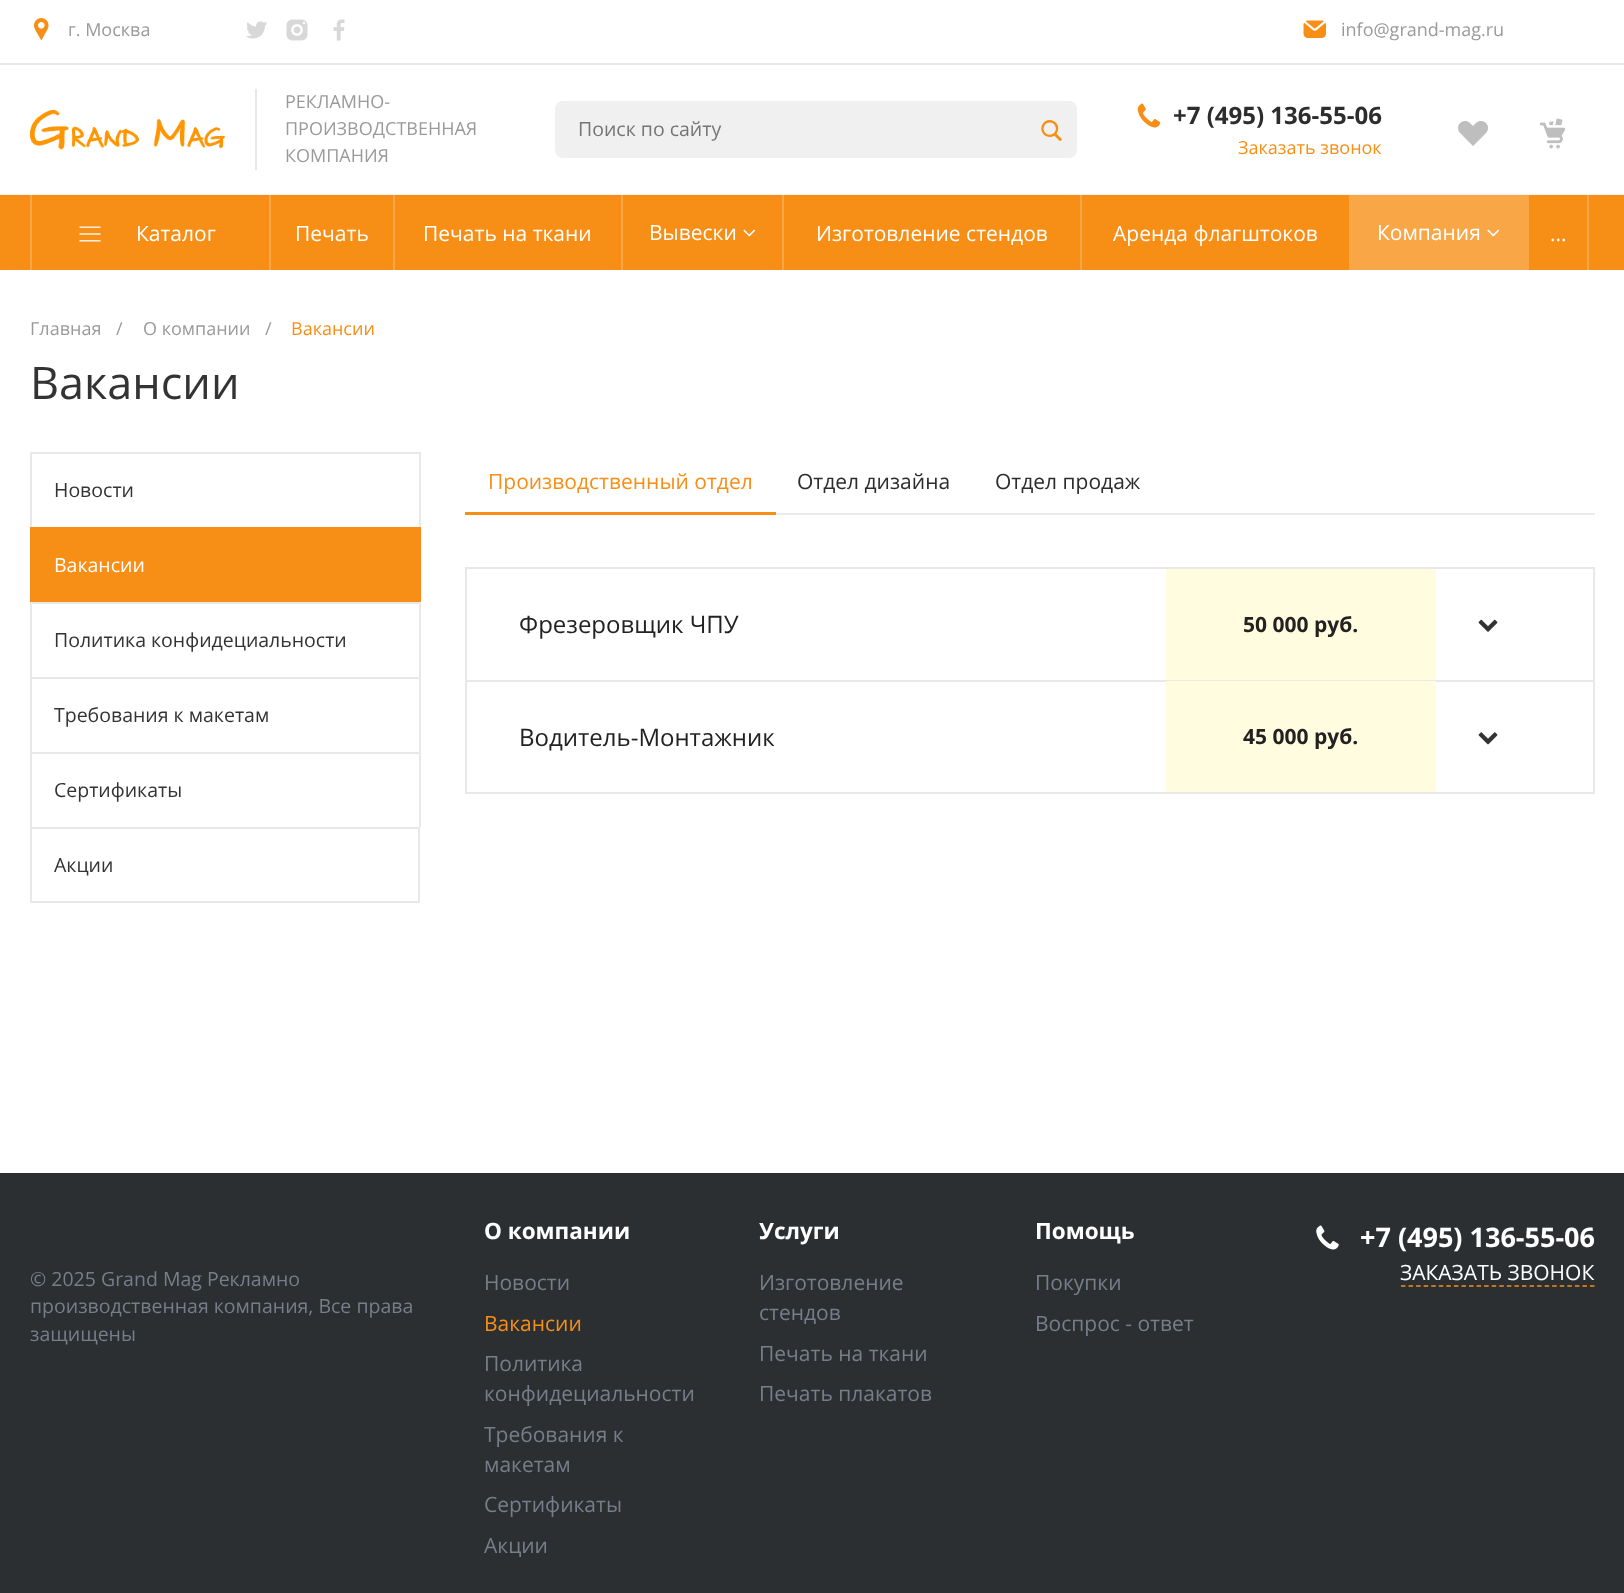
<svg xmlns="http://www.w3.org/2000/svg" width="1624" height="1593">
<style>
.a{font:18px Open Sans;fill:#9a9a9a}
.b{font:19.5px Open Sans;fill:#757575}
.c{font:bold 24px Open Sans;fill:#2d2d2d}
.d{font:18px Open Sans;fill:#f78e16}
.e{font:21px Open Sans;fill:#fff}
.f{font:45px Open Sans;fill:#333}
.g{font:19.5px Open Sans;fill:#333}
.h{font:19.5px Open Sans;fill:#fff}
.i{font:21px Open Sans;fill:#f78e16}
.j{font:21px Open Sans;fill:#2d2d2d}
.k{font:24px Open Sans;fill:#232121}
.l{font:bold 21px Open Sans;fill:#232121}
.m{font:bold 22.5px Open Sans;fill:#fff}
.n{font:21px Open Sans;fill:#777e89}
.o{font:bold 27px Open Sans;fill:#fff}
.p{font:19.5px Open Sans;fill:#777e89}
</style>
<rect width="100%" height="100%" fill="#fff"/>
<path fill="#e8e8e8" d="M0 63h1624v2H0z"/>
<image href="1.png" x="34" y="18" width="15" height="23"/>
<image href="2.png" x="246" y="21" width="21" height="18"/>
<image href="3.png" x="286" y="19" width="22" height="22"/>
<image href="4.png" x="333" y="19" width="12" height="22"/>
<image href="5.png" x="1303" y="20" width="23" height="18"/>
<path fill="#f2f2f2" d="M0 194h1624v1H0z"/>
<image href="6.png" x="30" y="110" width="195" height="40"/>
<path fill="#e8e8e8" d="M255 89h2v81H255z"/>
<rect fill="#f0f0f0" x="555" y="101" width="522" height="57" rx="8"/>
<image href="7.png" x="1041" y="120" width="21" height="21"/>
<image href="8.png" x="1137" y="103" width="24" height="25"/>
<image href="9.png" x="1458" y="121" width="30" height="25"/>
<image href="10.png" x="1539" y="118" width="27" height="31"/>
<path fill="#f78e16" d="M0 195h1624v75H0z"/>
<path fill="#f9a647" d="M269 195h2v75H269z"/>
<path fill="#f9a647" d="M30 195h2v75H30z"/>
<image href="11.png" x="79" y="226" width="22" height="16"/>
<path fill="#f9a647" d="M393 195h2v75H393z"/>
<path fill="#f9a647" d="M621 195h2v75H621z"/>
<path fill="#f9a647" d="M782 195h2v75H782z"/>
<image href="12.png" x="743" y="229" width="13" height="8"/>
<path fill="#f9a647" d="M1080 195h2v75H1080z"/>
<path fill="#f9a647" d="M1349 195h180v75H1349z"/>
<image href="13.png" x="1487" y="229" width="13" height="8"/>
<path fill="#f9a647" d="M1587 195h2v75H1587z"/>
<path fill="#e8e8e8" d="M30 452h390v2H30z"/>
<path fill="#e8e8e8" d="M419 452h2v75H419z"/>
<path fill="#e8e8e8" d="M30 452h2v75H30z"/>
<path fill="#f78e16" d="M30 527h391v75H30z"/>
<path fill="#e8e8e8" d="M30 602h390v2H30z"/>
<path fill="#e8e8e8" d="M419 602h2v75H419z"/>
<path fill="#e8e8e8" d="M30 602h2v75H30z"/>
<path fill="#e8e8e8" d="M30 677h390v2H30z"/>
<path fill="#e8e8e8" d="M419 677h2v75H419z"/>
<path fill="#e8e8e8" d="M30 677h2v75H30z"/>
<path fill="#e8e8e8" d="M30 752h390v2H30z"/>
<path fill="#e8e8e8" d="M419 752h2v75H419z"/>
<path fill="#e8e8e8" d="M30 752h2v75H30z"/>
<path fill="none" stroke="#e8e8e8" stroke-width="2" d="M31 828h388v74H31z"/>
<path fill="#ebebeb" d="M776 513h819v2H776z"/>
<path fill="#f78e16" d="M465 512h311v3H465z"/>
<path fill="none" stroke="#e8e8e8" stroke-width="2" d="M466 568h1128v225H466z"/>
<path fill="#fffce0" d="M1166 569h270v111H1166z"/>
<image href="14.png" x="1478" y="619" width="20" height="13"/>
<path fill="#e8e8e8" d="M467 680h1126v2H467z"/>
<path fill="#fffce0" d="M1166 681h270v111H1166z"/>
<image href="15.png" x="1478" y="732" width="20" height="13"/>
<path fill="#2b2f32" d="M0 1173h1624v420H0z"/>
<image href="16.png" x="1316" y="1225" width="23" height="25"/>
<path fill="none" stroke="#f78e16" stroke-width="1.5" stroke-dasharray="4.5 3.06" d="M1401 1286h193.5"/>
<text class="a" x="68" y="36">г. Москва</text>
<text class="a" x="1341" y="36">info@grand-mag.ru</text>
<text class="a" x="285" y="108">РЕКЛАМНО-</text>
<text class="a" x="285" y="135">ПРОИЗВОДСТВЕННАЯ</text>
<text class="a" x="285" y="162">КОМПАНИЯ</text>
<text class="b" x="578" y="136">Поиск по сайту</text>
<text class="c" x="1173" y="124">+7 (495) 136-55-06</text>
<text class="d" x="1238" y="154">Заказать звонок</text>
<text class="e" x="136" y="241">Каталог</text>
<text class="e" x="295" y="241">Печать</text>
<text class="e" x="423" y="241">Печать на ткани</text>
<text class="e" x="649" y="240">Вывески</text>
<text class="e" x="816" y="241">Изготовление стендов</text>
<text class="e" x="1113" y="241">Аренда флагштоков</text>
<text class="e" x="1377" y="240">Компания</text>
<text class="e" x="1550" y="241">...</text>
<text class="a" x="30" y="335">Главная</text>
<text class="a" x="116" y="335">/</text>
<text class="a" x="143" y="335">О компании</text>
<text class="a" x="265" y="335">/</text>
<text class="d" x="291" y="335">Вакансии</text>
<text class="f" x="30" y="399">Вакансии</text>
<text class="g" x="54" y="497">Новости</text>
<text class="h" x="54" y="572">Вакансии</text>
<text class="g" x="54" y="647">Политика конфидециальности</text>
<text class="g" x="54" y="722">Требования к макетам</text>
<text class="g" x="54" y="797">Сертификаты</text>
<text class="g" x="54" y="872">Акции</text>
<text class="i" x="488" y="489">Производственный отдел</text>
<text class="j" x="797" y="489">Отдел дизайна</text>
<text class="j" x="995" y="489">Отдел продаж</text>
<text class="k" x="519" y="633">Фрезеровщик ЧПУ</text>
<text class="l" x="1243" y="632">50 000 руб.</text>
<text class="k" x="519" y="746">Водитель-Монтажник</text>
<text class="l" x="1243" y="744">45 000 руб.</text>
<text class="m" x="484" y="1239">О компании</text>
<text class="n" x="484" y="1290">Новости</text>
<text class="i" x="484" y="1331">Вакансии</text>
<text class="n" x="484" y="1371">Политика</text>
<text class="n" x="484" y="1401">конфидециальности</text>
<text class="n" x="484" y="1442">Требования к</text>
<text class="n" x="484" y="1472">макетам</text>
<text class="n" x="484" y="1512">Сертификаты</text>
<text class="n" x="484" y="1553">Акции</text>
<text class="m" x="759" y="1239">Услуги</text>
<text class="n" x="759" y="1290">Изготовление</text>
<text class="n" x="759" y="1320">стендов</text>
<text class="n" x="759" y="1361">Печать на ткани</text>
<text class="n" x="759" y="1401">Печать плакатов</text>
<text class="m" x="1035" y="1239">Помощь</text>
<text class="n" x="1035" y="1290">Покупки</text>
<text class="n" x="1035" y="1331">Воспрос - ответ</text>
<text class="o" x="1360" y="1247">+7 (495) 136-55-06</text>
<text class="e" x="1400" y="1280">ЗАКАЗАТЬ ЗВОНОК</text>
<text class="p" x="30" y="1286">© 2025 Grand Mag Рекламно</text>
<text class="p" x="30" y="1313">производственная компания, Все права</text>
<text class="p" x="30" y="1341">защищены</text>
</svg>
